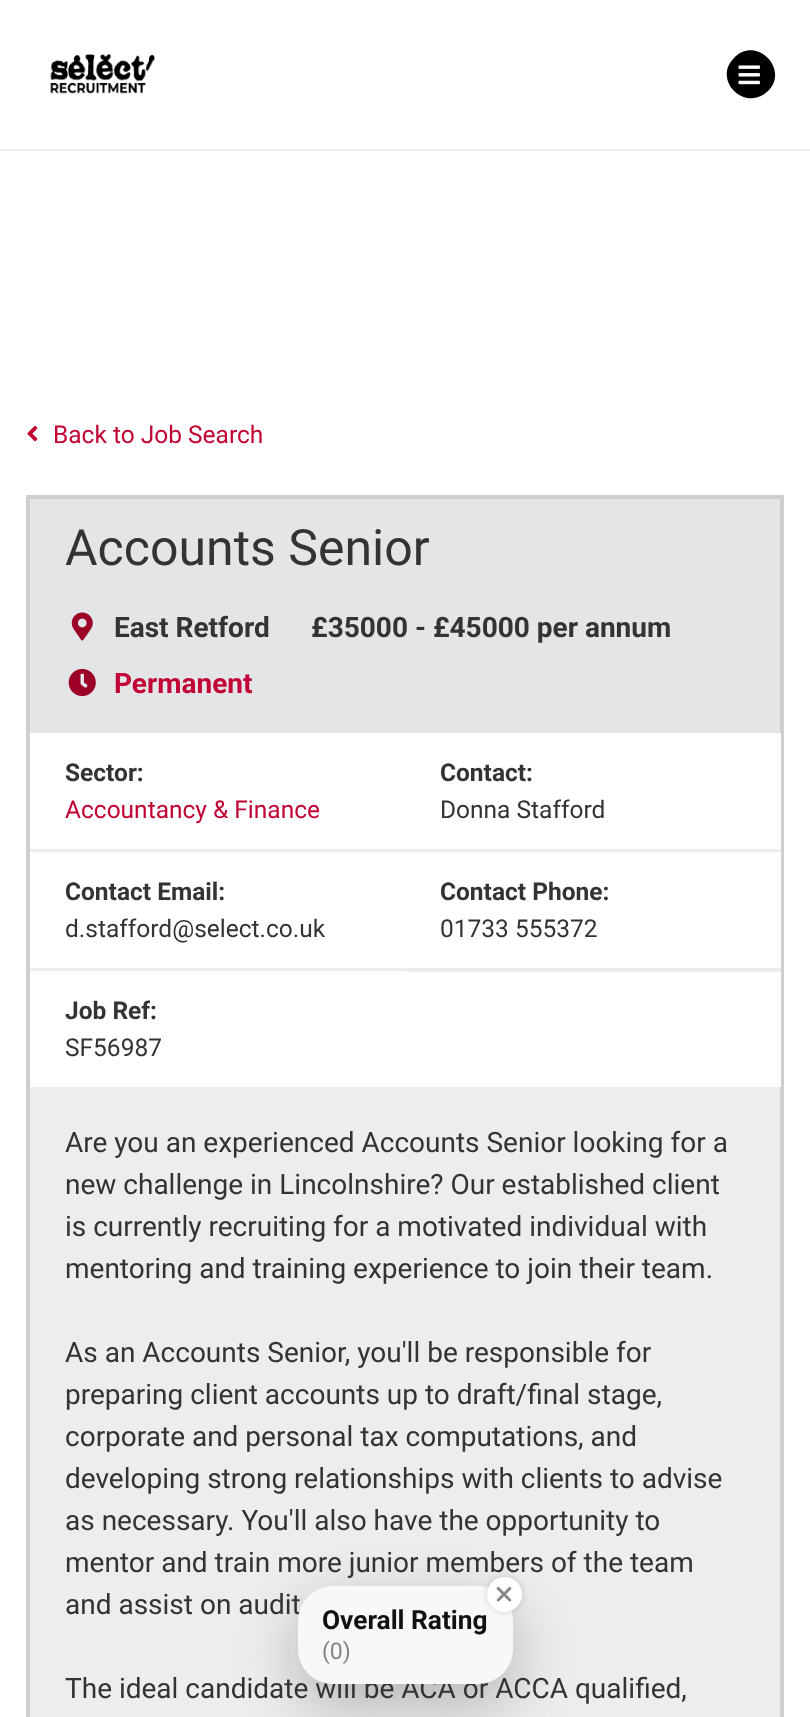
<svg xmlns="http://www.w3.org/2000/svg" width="810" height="1717">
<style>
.a{font:24.5px Roboto;fill:#c10435}
.b{font:50px Roboto;fill:#333}
.c{font:bold 28px Roboto;fill:#333}
.d{font:bold 28px Roboto;fill:#c10435}
.e{font:bold 24.5px Roboto;fill:#333}
.f{font:24.5px Roboto;fill:#333}
.g{font:28px Roboto;fill:#333}
.h{font:bold 26.25px Roboto;fill:#111}
.i{font:23px Roboto;fill:#858585}
</style>
<rect width="100%" height="100%" fill="#fff"/>
<path fill="#ecedef" d="M0 149h810v2H0z"/>
<image href="1.png" x="50" y="54" width="105" height="40"/>
<path fill="#000" d="M734 58c22-23 56 11 34 33c-23 22-56-11-34-33z"/>
<image href="2.png" x="738" y="65" width="22" height="20"/>
<image href="3.png" x="27" y="425" width="11" height="17"/>
<path fill="#ecedef" stroke="#cfcfd1" stroke-width="4" d="M28 497h754v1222H28z"/>
<path fill="#00000008" d="M30 499h751v234H30z"/>
<image href="4.png" x="71" y="612" width="22" height="29"/>
<image href="5.png" x="68" y="668" width="28" height="29"/>
<path fill="#fff" d="M30 733h751v354H30z"/>
<path fill="#ecedef" d="M30 849h751v3H30z"/>
<path fill="#ecedef" d="M30 968h376v3H30z"/>
<path fill="#ecedef" d="M406 968h375v4H406z"/>
<rect fill="#00000026" filter="blur(26px)" x="298" y="1603" width="215" height="98" rx="35"/>
<rect fill="#0000001a" filter="blur(35px)" x="298" y="1612" width="215" height="98" rx="35"/>
<text class="a" x="53" y="443">Back to Job Search</text>
<text class="b" x="65" y="565">Accounts Senior</text>
<text class="c" x="114" y="637">East Retford</text>
<text class="c" x="311" y="637">£35000 - £45000 per annum</text>
<text class="d" x="114" y="693">Permanent</text>
<text class="e" x="65" y="781">Sector:</text>
<text class="a" x="65" y="818">Accountancy &amp; Finance</text>
<text class="e" x="440" y="781">Contact:</text>
<text class="f" x="440" y="818">Donna Stafford</text>
<text class="e" x="65" y="900">Contact Email:</text>
<text class="f" x="65" y="937">d.stafford@select.co.uk</text>
<text class="e" x="440" y="900">Contact Phone:</text>
<text class="f" x="440" y="937">01733 555372</text>
<text class="e" x="65" y="1019">Job Ref:</text>
<text class="f" x="65" y="1056">SF56987</text>
<text class="g" x="65" y="1152">Are you an experienced Accounts Senior looking for a</text>
<text class="g" x="65" y="1194">new challenge in Lincolnshire? Our established client</text>
<text class="g" x="65" y="1236">is currently recruiting for a motivated individual with</text>
<text class="g" x="65" y="1278">mentoring and training experience to join their team.</text>
<text class="g" x="65" y="1362">As an Accounts Senior, you'll be responsible for</text>
<text class="g" x="65" y="1404">preparing client accounts up to draft/final stage,</text>
<text class="g" x="65" y="1446">corporate and personal tax computations, and</text>
<text class="g" x="65" y="1488">developing strong relationships with clients to advise</text>
<text class="g" x="65" y="1530">as necessary. You'll also have the opportunity to</text>
<text class="g" x="65" y="1572">mentor and train more junior members of the team</text>
<text class="g" x="65" y="1614">and assist on audit</text>
<text class="g" x="65" y="1698">The ideal candidate will be ACA or ACCA qualified,</text>
<rect fill="#f8f8f8" x="298" y="1586" width="215" height="98" rx="35"/>
<rect fill="#00000026" filter="blur(3.5px)" x="487" y="1577" width="35" height="35" rx="17.5"/>
<circle fill="#fff" cx="504.5" cy="1594.5" r="17.5"/>
<image href="6.png" x="496" y="1587" width="16" height="15"/>
<text class="h" x="322" y="1629">Overall Rating</text>
<text class="i" x="322" y="1659">(0)</text>
</svg>
